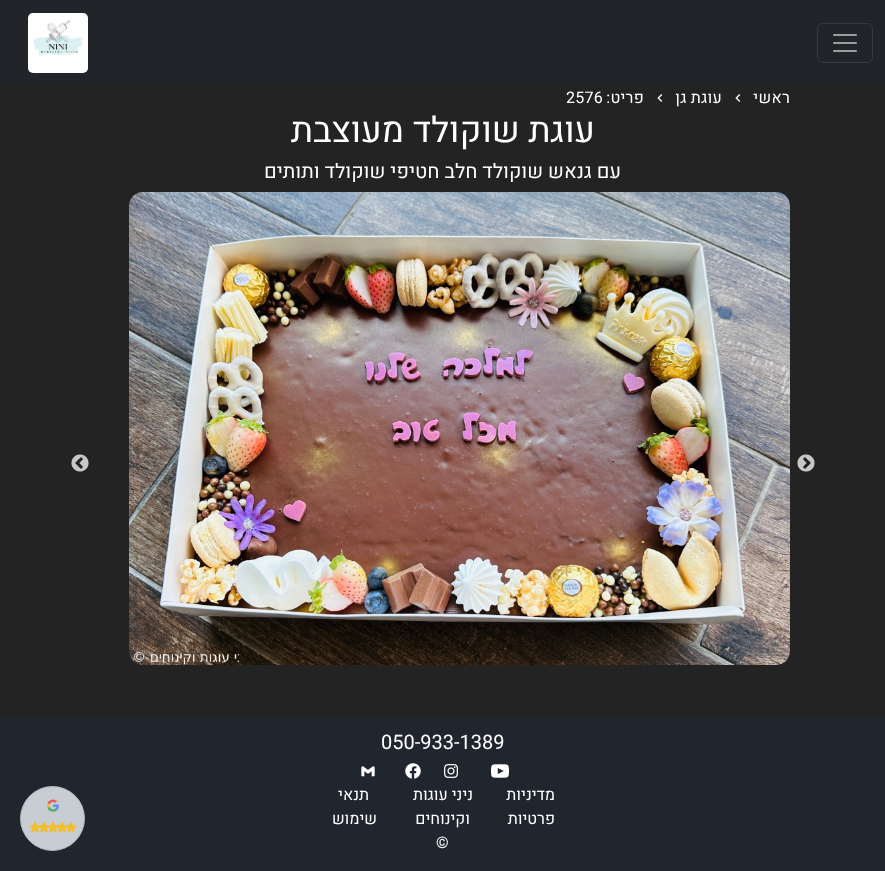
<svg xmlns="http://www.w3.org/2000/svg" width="885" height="871">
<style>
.a{font:16px Heebo;letter-spacing:0.25px;direction:rtl;fill:#fff}
.b{font:16px Heebo;letter-spacing:0.25px;fill:#fff}
.c{font:35.25px Heebo;direction:rtl;fill:#fff}
.d{font:20px Heebo;direction:rtl;fill:#fff}
.e{font:20px Heebo;fill:#fff}
.f{font:16px Heebo;direction:rtl;fill:#fff}
.g{font:16px Heebo;fill:#fff}
</style>
<rect width="100%" height="100%" fill="#232323"/>
<path fill="#212529" d="M0 0h885v86H0z"/>
<rect fill="none" stroke="#373b3e" x="817.5" y="23.5" width="55" height="39" rx="5.5"/>
<image href="1.png" x="833" y="34" width="24" height="18"/>
<image href="2.png" x="28" y="13" width="60" height="60"/>
<image href="3.png" x="735" y="94" width="6" height="8"/>
<image href="3.png" x="657" y="94" width="6" height="8"/>
<image href="4.png" x="797" y="454" width="18" height="18"/>
<image href="5.png" x="129" y="192" width="661" height="473"/>
<image href="6.png" x="71" y="454" width="18" height="18"/>
<path fill="#20262e" d="M0 718h885v153H0z"/>
<image href="7.png" x="491" y="764" width="18" height="14"/>
<image href="8.png" x="444" y="764" width="14" height="14"/>
<image href="9.png" x="405" y="763" width="16" height="16"/>
<image href="10.png" x="361" y="766" width="14" height="11"/>
<circle fill="#c8ccd3" stroke="#b5b8bc" cx="52.5" cy="818.5" r="32"/>
<image href="11.png" x="46" y="799" width="13" height="13"/>
<image href="12.png" x="29" y="821" width="48" height="12"/>
<text class="a" x="790" y="103">ראשי</text>
<text class="a" x="722" y="103">עוגת גן</text>
<text class="a" x="644" y="103">פריט:</text>
<text class="b" x="566" y="103">2576</text>
<text class="c" x="595" y="142">עוגת שוקולד מעוצבת</text>
<text class="d" x="621" y="178">עם גנאש שוקולד חלב חטיפי שוקולד ותותים</text>
<text class="e" x="381" y="749">050-933-1389</text>
<text class="f" x="555" y="800">מדיניות</text>
<text class="f" x="555" y="824">פרטיות</text>
<text class="f" x="473" y="800">ניני עוגות</text>
<text class="f" x="470" y="824">וקינוחים</text>
<text class="g" x="436" y="848">©</text>
<text class="f" x="369" y="800">תנאי</text>
<text class="f" x="377" y="824">שימוש</text>
</svg>
